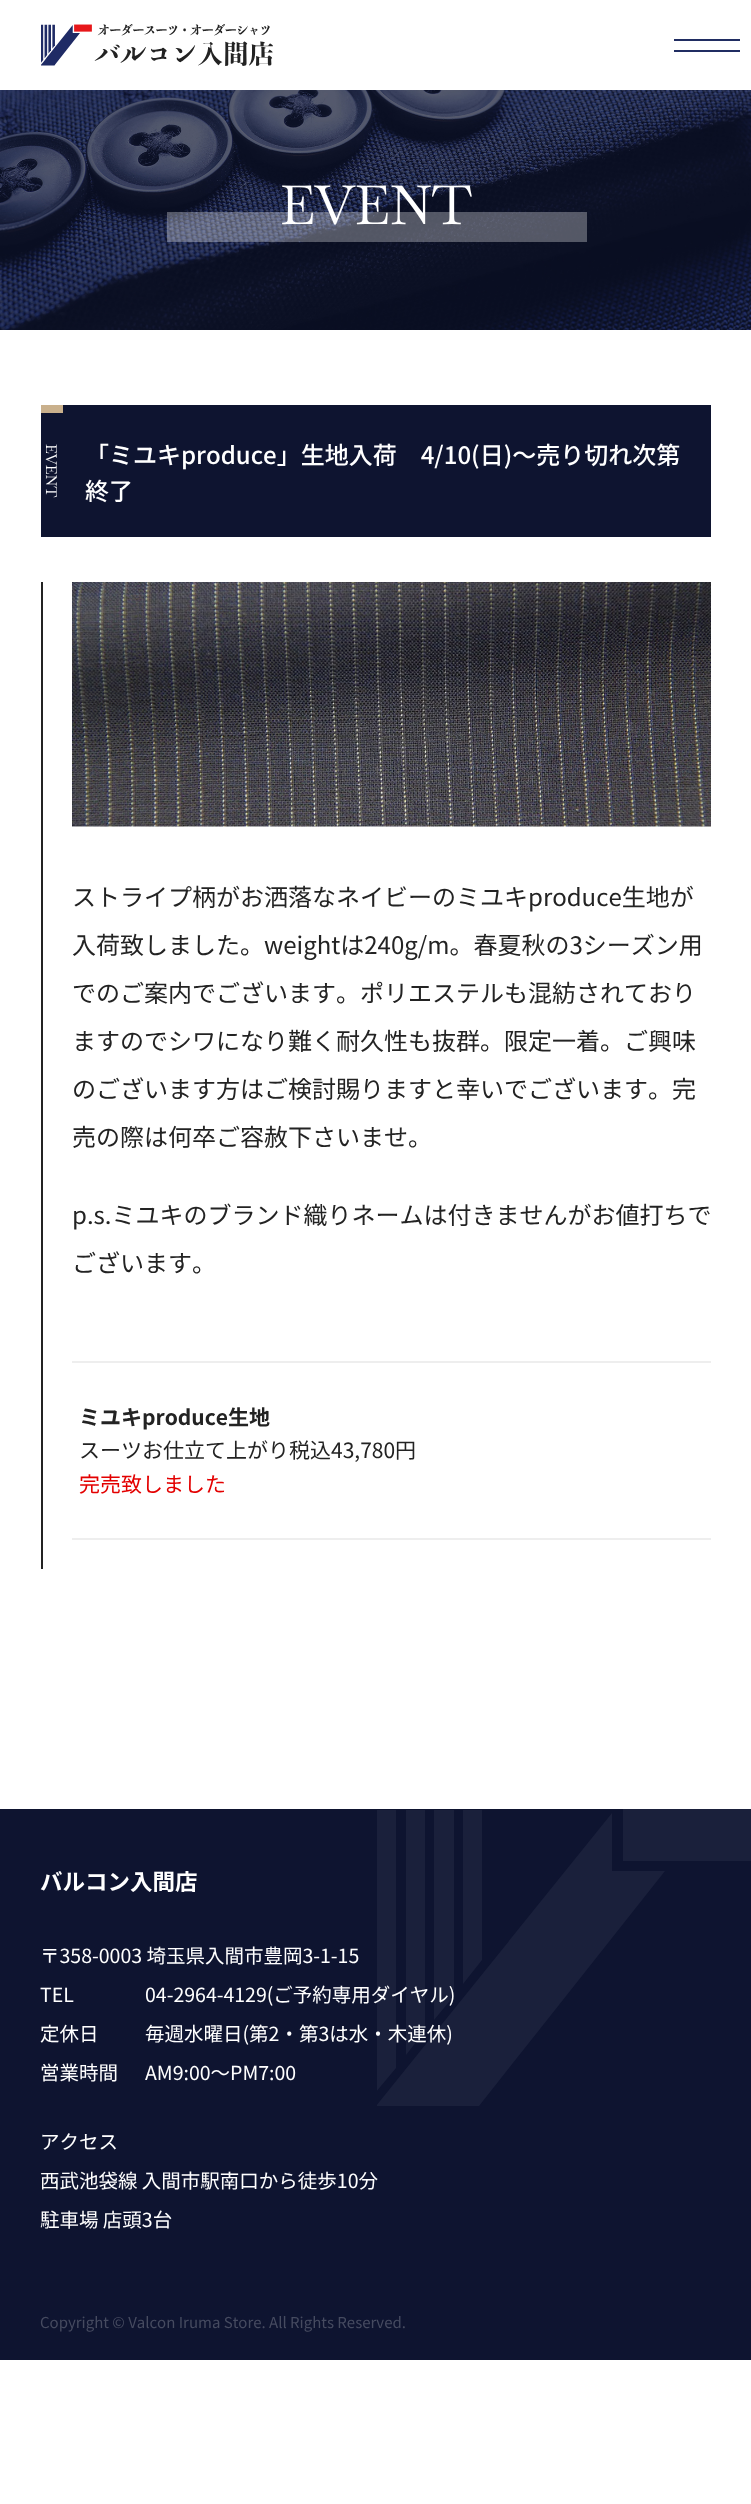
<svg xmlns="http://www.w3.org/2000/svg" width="751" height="2504">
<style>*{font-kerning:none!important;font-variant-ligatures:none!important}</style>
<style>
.a{font:54px Baskervville;fill:#fff}
.b{font:15px Baskervville;fill:#fff}
.c{font:500 24px Noto Sans JP;fill:#fff}
.d{font:24px Noto Sans JP;fill:#232323}
.e{font:bold 21px Noto Sans JP;fill:#232323}
.f{font:21px Noto Sans JP;fill:#232323}
.g{font:21px Noto Sans JP;fill:#e30000}
.h{font:bold 22.5px Noto Sans JP;fill:#fff}
.i{font:19.5px Noto Sans JP;fill:#fff}
.j{font:15px Noto Sans JP;fill:#464b60}
</style>
<defs>
<clipPath id="clip1"><path d="M377 1809h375v297H377z"/></clipPath>
</defs>
<rect width="100%" height="100%" fill="#fff"/>
<image href="1.png" x="41" y="24" width="232" height="42"/>
<path fill="#202d62" d="M674 39h66v2H674z"/>
<path fill="#202d62" d="M674 50h66v2H674z"/>
<image href="2.png" x="0" y="90" width="751" height="240"/>
<path fill="#0e1430" d="M41 405h670v132H41z"/>
<path fill="#c9b08c" d="M41 405h22v8H41z"/>
<path fill="#232323" d="M41 582h2v987H41z"/>
<image href="3.png" x="72" y="582" width="639" height="245"/>
<path fill="#eee" d="M72 1361h639v2H72z"/>
<path fill="#eee" d="M72 1538h639v2H72z"/>
<path fill="#0e1430" d="M0 1809h751v551H0z"/>
<g clip-path="url(#clip1)">
<path fill="#1a203b" d="M396 1810h-20v282l20-24zm29 0h-19v245l19-24zm29 0h-20v210l20-24zm28 0h-19v174l19-24zm130 3l-236 293h103l186-235h-53zm11-4v52h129v-52z"/>
</g>
<text class="a" x="280" y="224">EVENT</text>
<path fill="#ffffff4d" d="M167 212h420v30H167z"/>
<text class="b" x="46" y="444" transform="rotate(90 46 444)">EVENT</text>
<text class="c" x="85" y="464">「ミユキproduce」生地入荷　4/10(日)～売り切れ次第</text>
<text class="c" x="85" y="500">終了</text>
<text class="d" x="72" y="906">ストライプ柄がお洒落なネイビーのミユキproduce生地が</text>
<text class="d" x="72" y="954">入荷致しました。weightは240g/m。春夏秋の3シーズン用</text>
<text class="d" x="72" y="1002">でのご案内でございます。ポリエステルも混紡されており</text>
<text class="d" x="72" y="1050">ますのでシワになり難く耐久性も抜群。限定一着。ご興味</text>
<text class="d" x="72" y="1098">のございます方はご検討賜りますと幸いでございます。完</text>
<text class="d" x="72" y="1146">売の際は何卒ご容赦下さいませ。</text>
<text class="d" x="72" y="1224">p.s.ミユキのブランド織りネームは付きませんがお値打ちで</text>
<text class="d" x="72" y="1272">ございます。</text>
<text class="e" x="79" y="1425">ミユキproduce生地</text>
<text class="f" x="79" y="1458">スーツお仕立て上がり税込43,780円</text>
<text class="g" x="79" y="1492">完売致しました</text>
<text class="h" x="40" y="1890">バルコン入間店</text>
<text class="i" x="40" y="1963">〒358-0003 埼玉県入間市豊岡3-1-15</text>
<text class="i" x="40" y="2002">TEL</text>
<text class="i" x="145" y="2002">04-2964-4129(ご予約専用ダイヤル)</text>
<text class="i" x="40" y="2041">定休日</text>
<text class="i" x="145" y="2041">毎週水曜日(第2・第3は水・木連休)</text>
<text class="i" x="40" y="2080">営業時間</text>
<text class="i" x="145" y="2080">AM9:00～PM7:00</text>
<text class="i" x="40" y="2149">アクセス</text>
<text class="i" x="40" y="2188">西武池袋線 入間市駅南口から徒歩10分</text>
<text class="i" x="40" y="2227">駐車場 店頭3台</text>
<text class="j" x="40" y="2328">Copyright © Valcon Iruma Store. All Rights Reserved.</text>
</svg>
